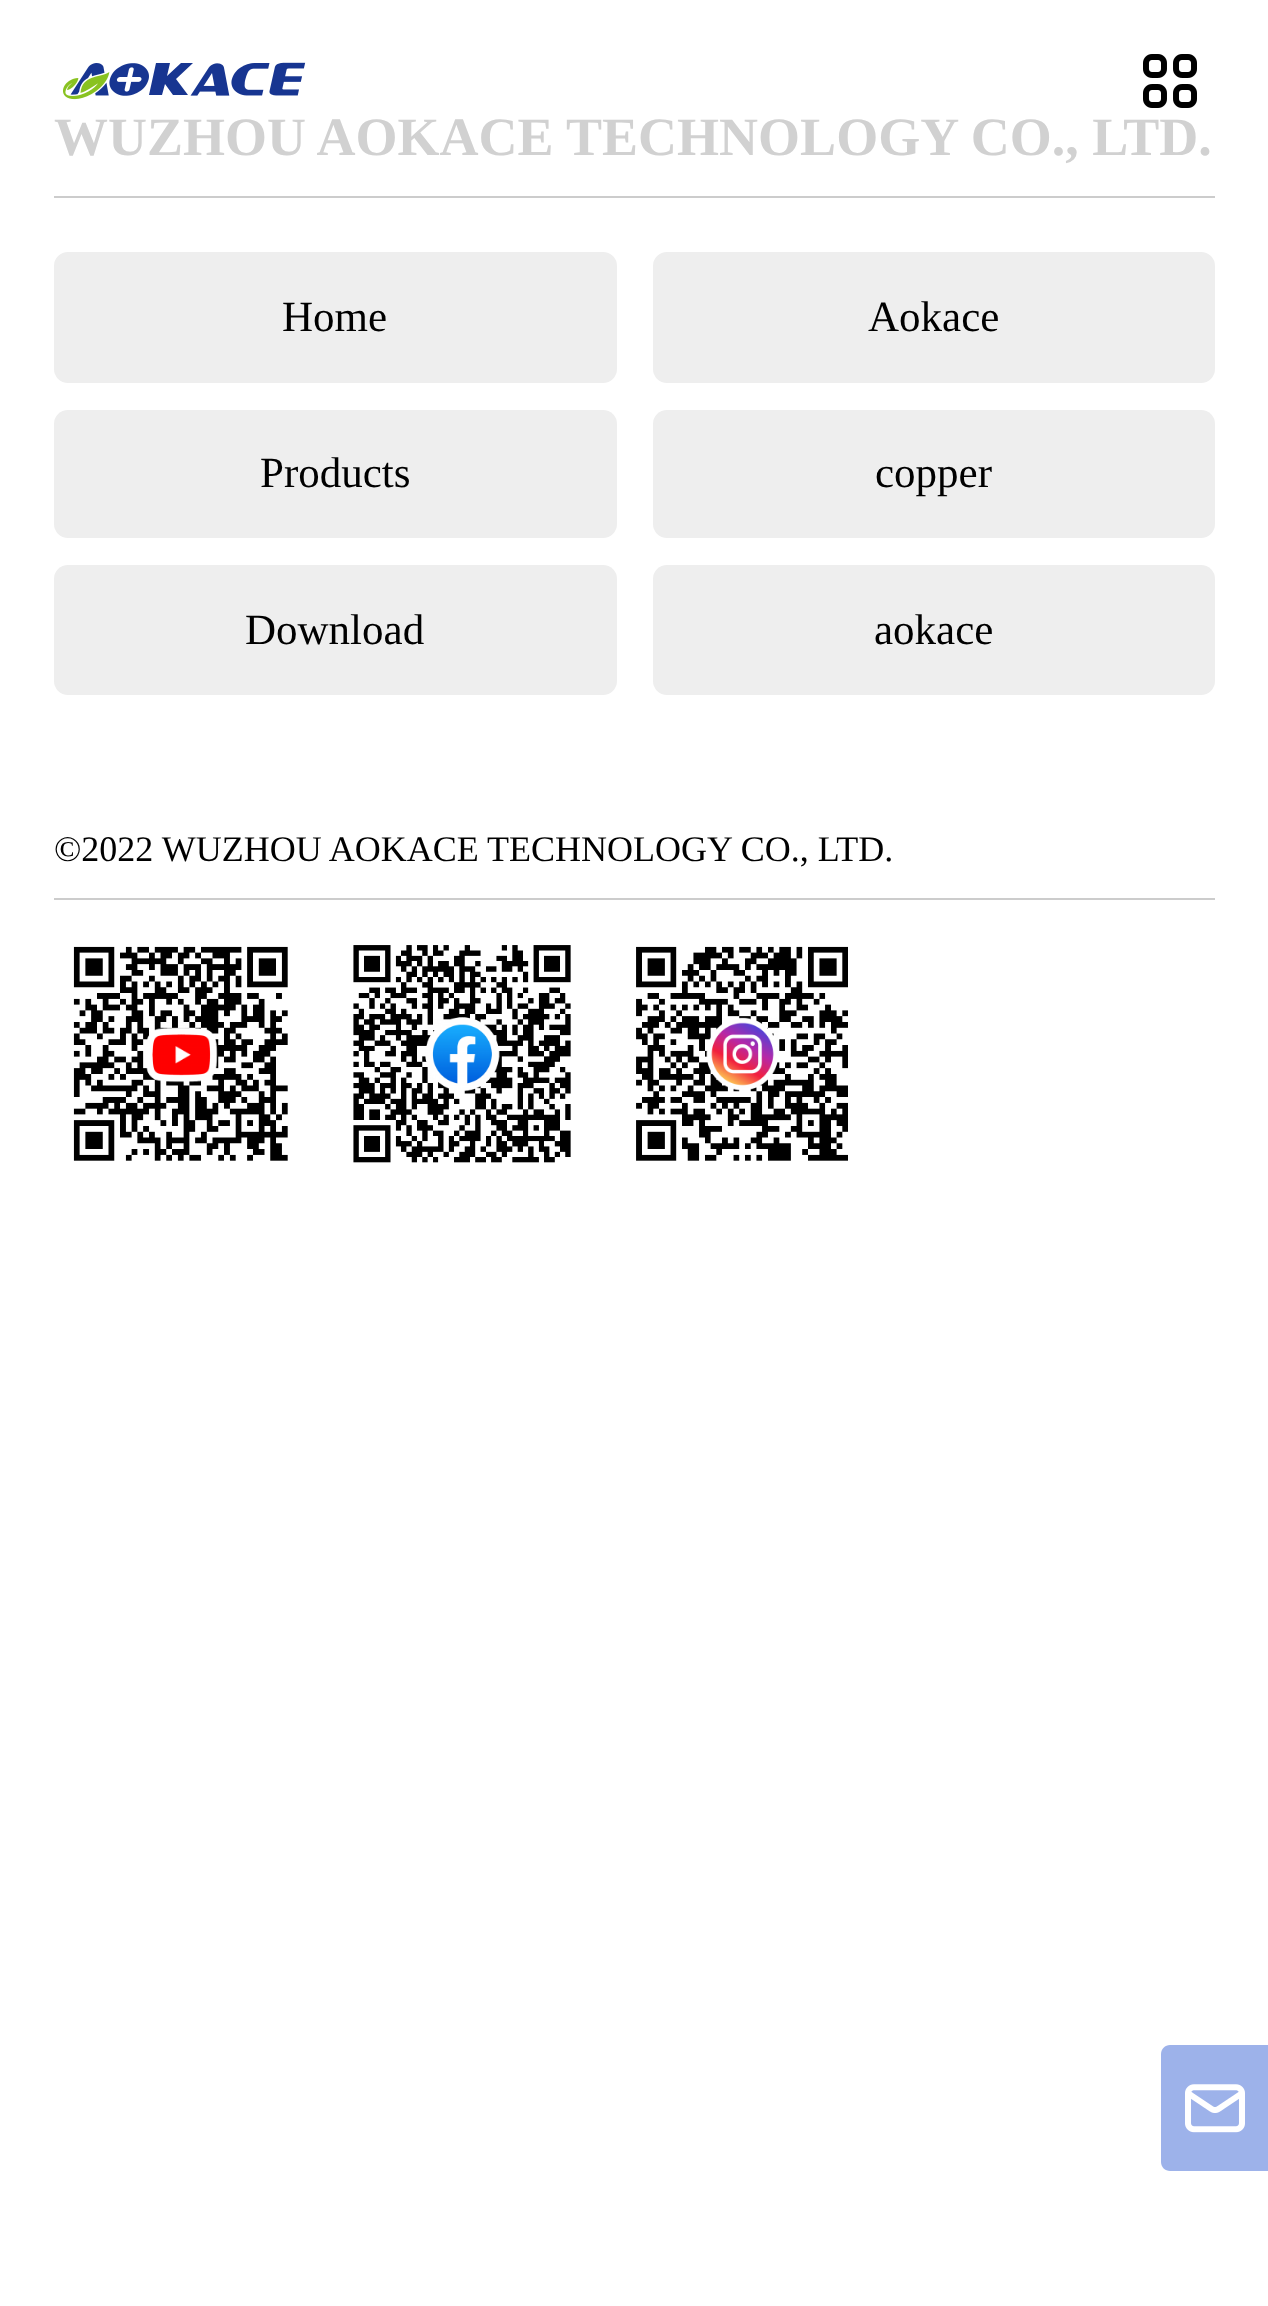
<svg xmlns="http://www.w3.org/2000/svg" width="1268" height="2306">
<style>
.a{font:bold 54px Liberation Serif;fill:#d1d1d1}
.b{font:43px Liberation Serif;fill:#000}
.c{font:36px Liberation Serif;fill:#000}
</style>
<rect width="100%" height="100%" fill="#fff"/>
<image href="1.png" x="70" y="63" width="35" height="32"/>
<image href="2.png" x="109" y="63" width="40" height="33"/>
<path fill="#173591" d="M188 95h-15l-8-11l-3 11h-13l7-32h14l-3 13l14-13h12l-17 16z"/>
<image href="3.png" x="190" y="63" width="40" height="33"/>
<image href="4.png" x="231" y="63" width="39" height="33"/>
<image href="5.png" x="269" y="62" width="37" height="34"/>
<image href="7.png" x="95" y="82" width="14" height="14"/>
<image href="6.png" x="63" y="72" width="47" height="28"/>
<image href="8.png" x="1143" y="54" width="54" height="54"/>
<path fill="#ccc" d="M54 196h1161v2H54z"/>
<rect fill="#eee" x="54" y="252" width="563" height="131" rx="14"/>
<rect fill="#eee" x="653" y="252" width="562" height="131" rx="14"/>
<rect fill="#eee" x="54" y="410" width="563" height="128" rx="14"/>
<rect fill="#eee" x="653" y="410" width="562" height="128" rx="14"/>
<rect fill="#eee" x="54" y="565" width="563" height="130" rx="14"/>
<rect fill="#eee" x="653" y="565" width="562" height="130" rx="14"/>
<path fill="#ccc" d="M54 898h1161v2H54z"/>
<image href="9.png" x="73" y="946" width="215" height="215"/>
<image href="10.png" x="353" y="945" width="218" height="218"/>
<image href="11.png" x="636" y="946" width="212" height="215"/>
<path fill="#9db2ea" d="M1170 2045h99v126h-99c-5 0-9-4-9-9v-108c0-5 4-9 9-9z"/>
<image href="12.png" x="1185" y="2084" width="60" height="49"/>
<text class="a" x="54" y="155">WUZHOU AOKACE TECHNOLOGY CO., LTD.</text>
<text class="b" x="282" y="331">Home</text>
<text class="b" x="868" y="331">Aokace</text>
<text class="b" x="260" y="487">Products</text>
<text class="b" x="875" y="487">copper</text>
<text class="b" x="245" y="644">Download</text>
<text class="b" x="874" y="644">aokace</text>
<text class="c" x="54" y="861">©2022 WUZHOU AOKACE TECHNOLOGY CO., LTD.</text>
</svg>
